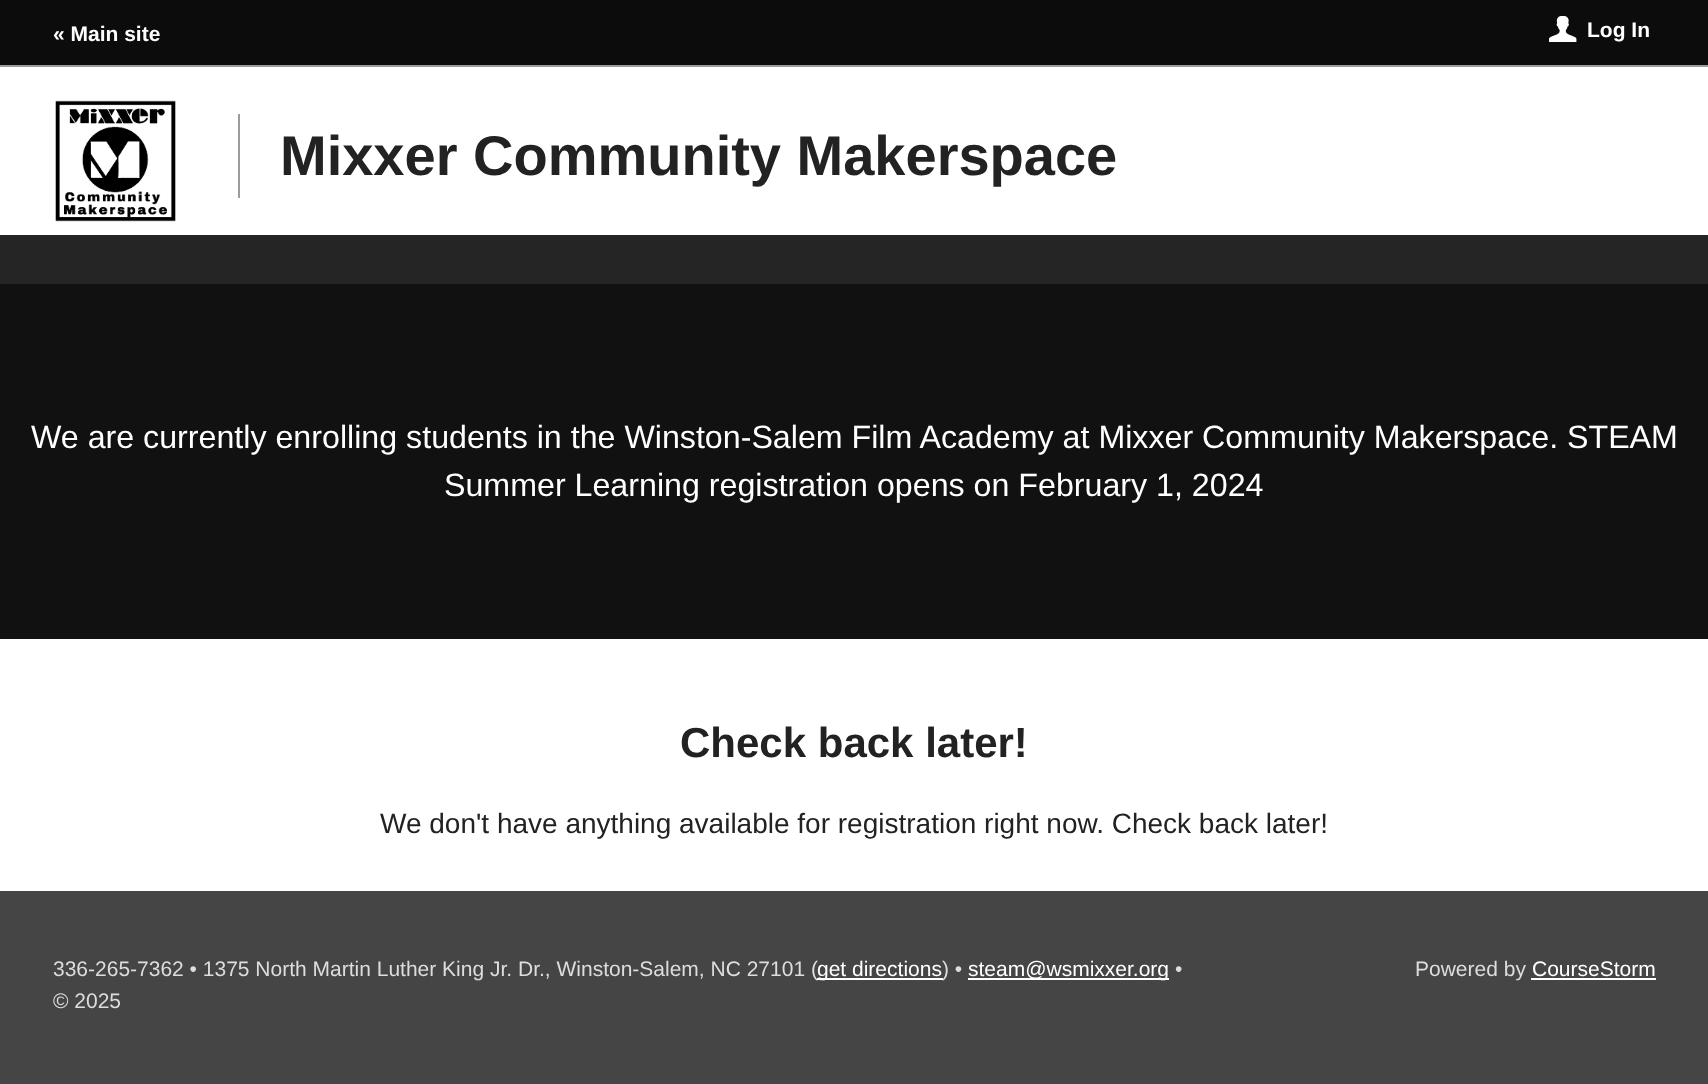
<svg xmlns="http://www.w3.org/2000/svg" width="1708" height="1084">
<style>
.a{font:bold 21px Liberation Sans;fill:#fff}
.b{font:bold 56px Liberation Sans;fill:#222}
.c{font:32.2px Liberation Sans;fill:#fff}
.d{font:bold 42px Liberation Sans;fill:#222}
.e{font:28px Liberation Sans;fill:#222}
.f{font:21px Liberation Sans;fill:#ddd}
.g{font:21px Liberation Sans;fill:#fff}
</style>
<rect width="100%" height="100%" fill="#fff"/>
<path fill="#0c0c0c" d="M0 0h1708v65H0z"/>
<path fill="#9c9c9c" d="M0 65h1708v2H0z"/>
<image href="1.png" x="1549" y="16" width="28" height="26"/>
<image href="2.png" x="55" y="100" width="121" height="122"/>
<path fill="#9c9c9c" d="M238 114h2v84H238z"/>
<path fill="#252525" d="M0 235h1708v49H0z"/>
<path fill="#111" d="M0 284h1708v355H0z"/>
<path fill="#454545" d="M0 891h1708v193H0z"/>
<path fill="#fff" d="M968 978h201v2H968z"/>
<path fill="#fff" d="M1531 978h125v2H1531z"/>
<text class="a" x="53" y="41">« Main site</text>
<text class="a" x="1587" y="37">Log In</text>
<text class="b" x="280" y="175">Mixxer Community Makerspace</text>
<text class="c" x="31" y="448">We are currently enrolling students in the Winston-Salem Film Academy at Mixxer Community Makerspace. STEAM</text>
<text class="c" x="444" y="496">Summer Learning registration opens on February 1, 2024</text>
<text class="d" x="680" y="757">Check back later!</text>
<text class="e" x="380" y="833">We don't have anything available for registration right now. Check back later!</text>
<text class="f" x="53" y="976">336-265-7362 • 1375 North Martin Luther King Jr. Dr., Winston-Salem, NC 27101 (</text>
<path fill="#fff" d="M817 978h126v2H817z"/>
<text class="g" x="817" y="976">get directions</text>
<text class="f" x="942" y="976">) •</text>
<text class="g" x="968" y="976">steam@wsmixxer.org</text>
<text class="f" x="1175" y="976">•</text>
<text class="f" x="53" y="1008">© 2025</text>
<text class="f" x="1415" y="976">Powered by</text>
<text class="g" x="1532" y="976">CourseStorm</text>
</svg>
